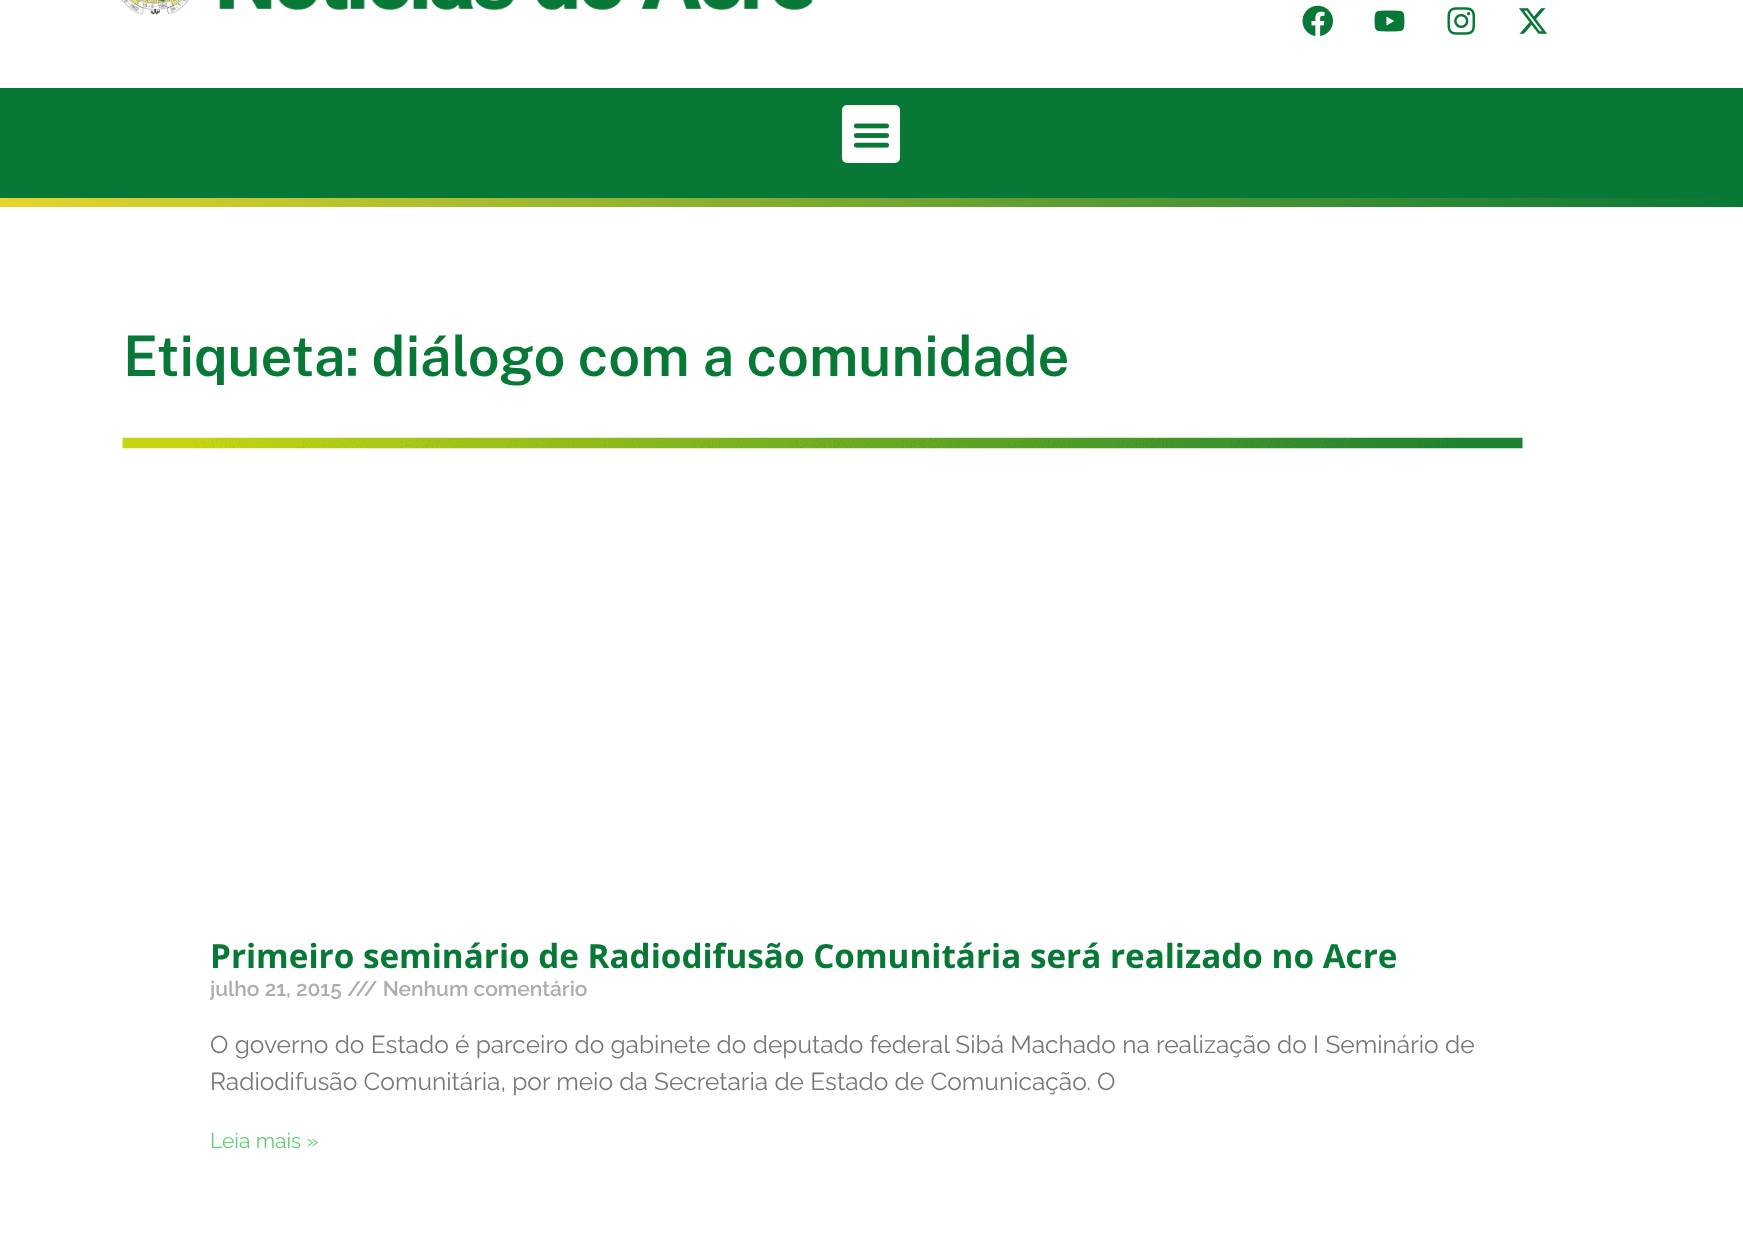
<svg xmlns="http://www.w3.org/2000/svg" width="1743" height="1260">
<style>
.a{font:600 56px Public Sans;fill:#077835}
.b{font:bold 33.25px Open Sans;fill:#077835}
.c{font:600 21px Raleway;fill:#adadad}
.d{font:24.5px Raleway;fill:#777}
.e{font:21px Raleway;fill:#61ce70}
</style>
<defs>
<linearGradient id="g1" gradientUnits="userSpaceOnUse" x1="1743" y1="202" x2="0" y2="202"><stop offset="0" stop-color="#077835"/><stop offset="1" stop-color="#e5d52c"/></linearGradient>
<clipPath id="clip1"><path d="M210 585h1323v575H210z"/></clipPath>
</defs>
<rect width="100%" height="100%" fill="#fff"/>
<image href="1.png" x="121" y="0" width="692" height="15"/>
<image href="2.png" x="1302" y="5" width="31" height="31"/>
<image href="3.png" x="1374" y="10" width="31" height="22"/>
<image href="4.png" x="1447" y="7" width="29" height="28"/>
<image href="5.png" x="1519" y="8" width="29" height="26"/>
<path fill="#077835" d="M0 88h1743v110H0z"/>
<rect fill="#fff" x="842" y="105" width="58" height="58" rx="5"/>
<image href="6.png" x="853" y="123" width="37" height="25"/>
<path fill="url(#g1)" d="M0 198h1743v9H0z"/>
<image href="7.png" x="122" y="437" width="1401" height="12"/>
<text class="a" x="123" y="376">Etiqueta: diálogo com a comunidade</text>
<text class="b" x="210" y="968">Primeiro seminário de Radiodifusão Comunitária será realizado no Acre</text>
<g clip-path="url(#clip1)">
<text class="c" x="210" y="996">julho 21, 2015</text>
</g>
<text class="c" x="347" y="996">/// Nenhum comentário</text>
<text class="d" x="210" y="1053">O governo do Estado é parceiro do gabinete do deputado federal Sibá Machado na realização do I Seminário de</text>
<text class="d" x="210" y="1090">Radiodifusão Comunitária, por meio da Secretaria de Estado de Comunicação. O</text>
<text class="e" x="210" y="1148">Leia mais »</text>
</svg>
